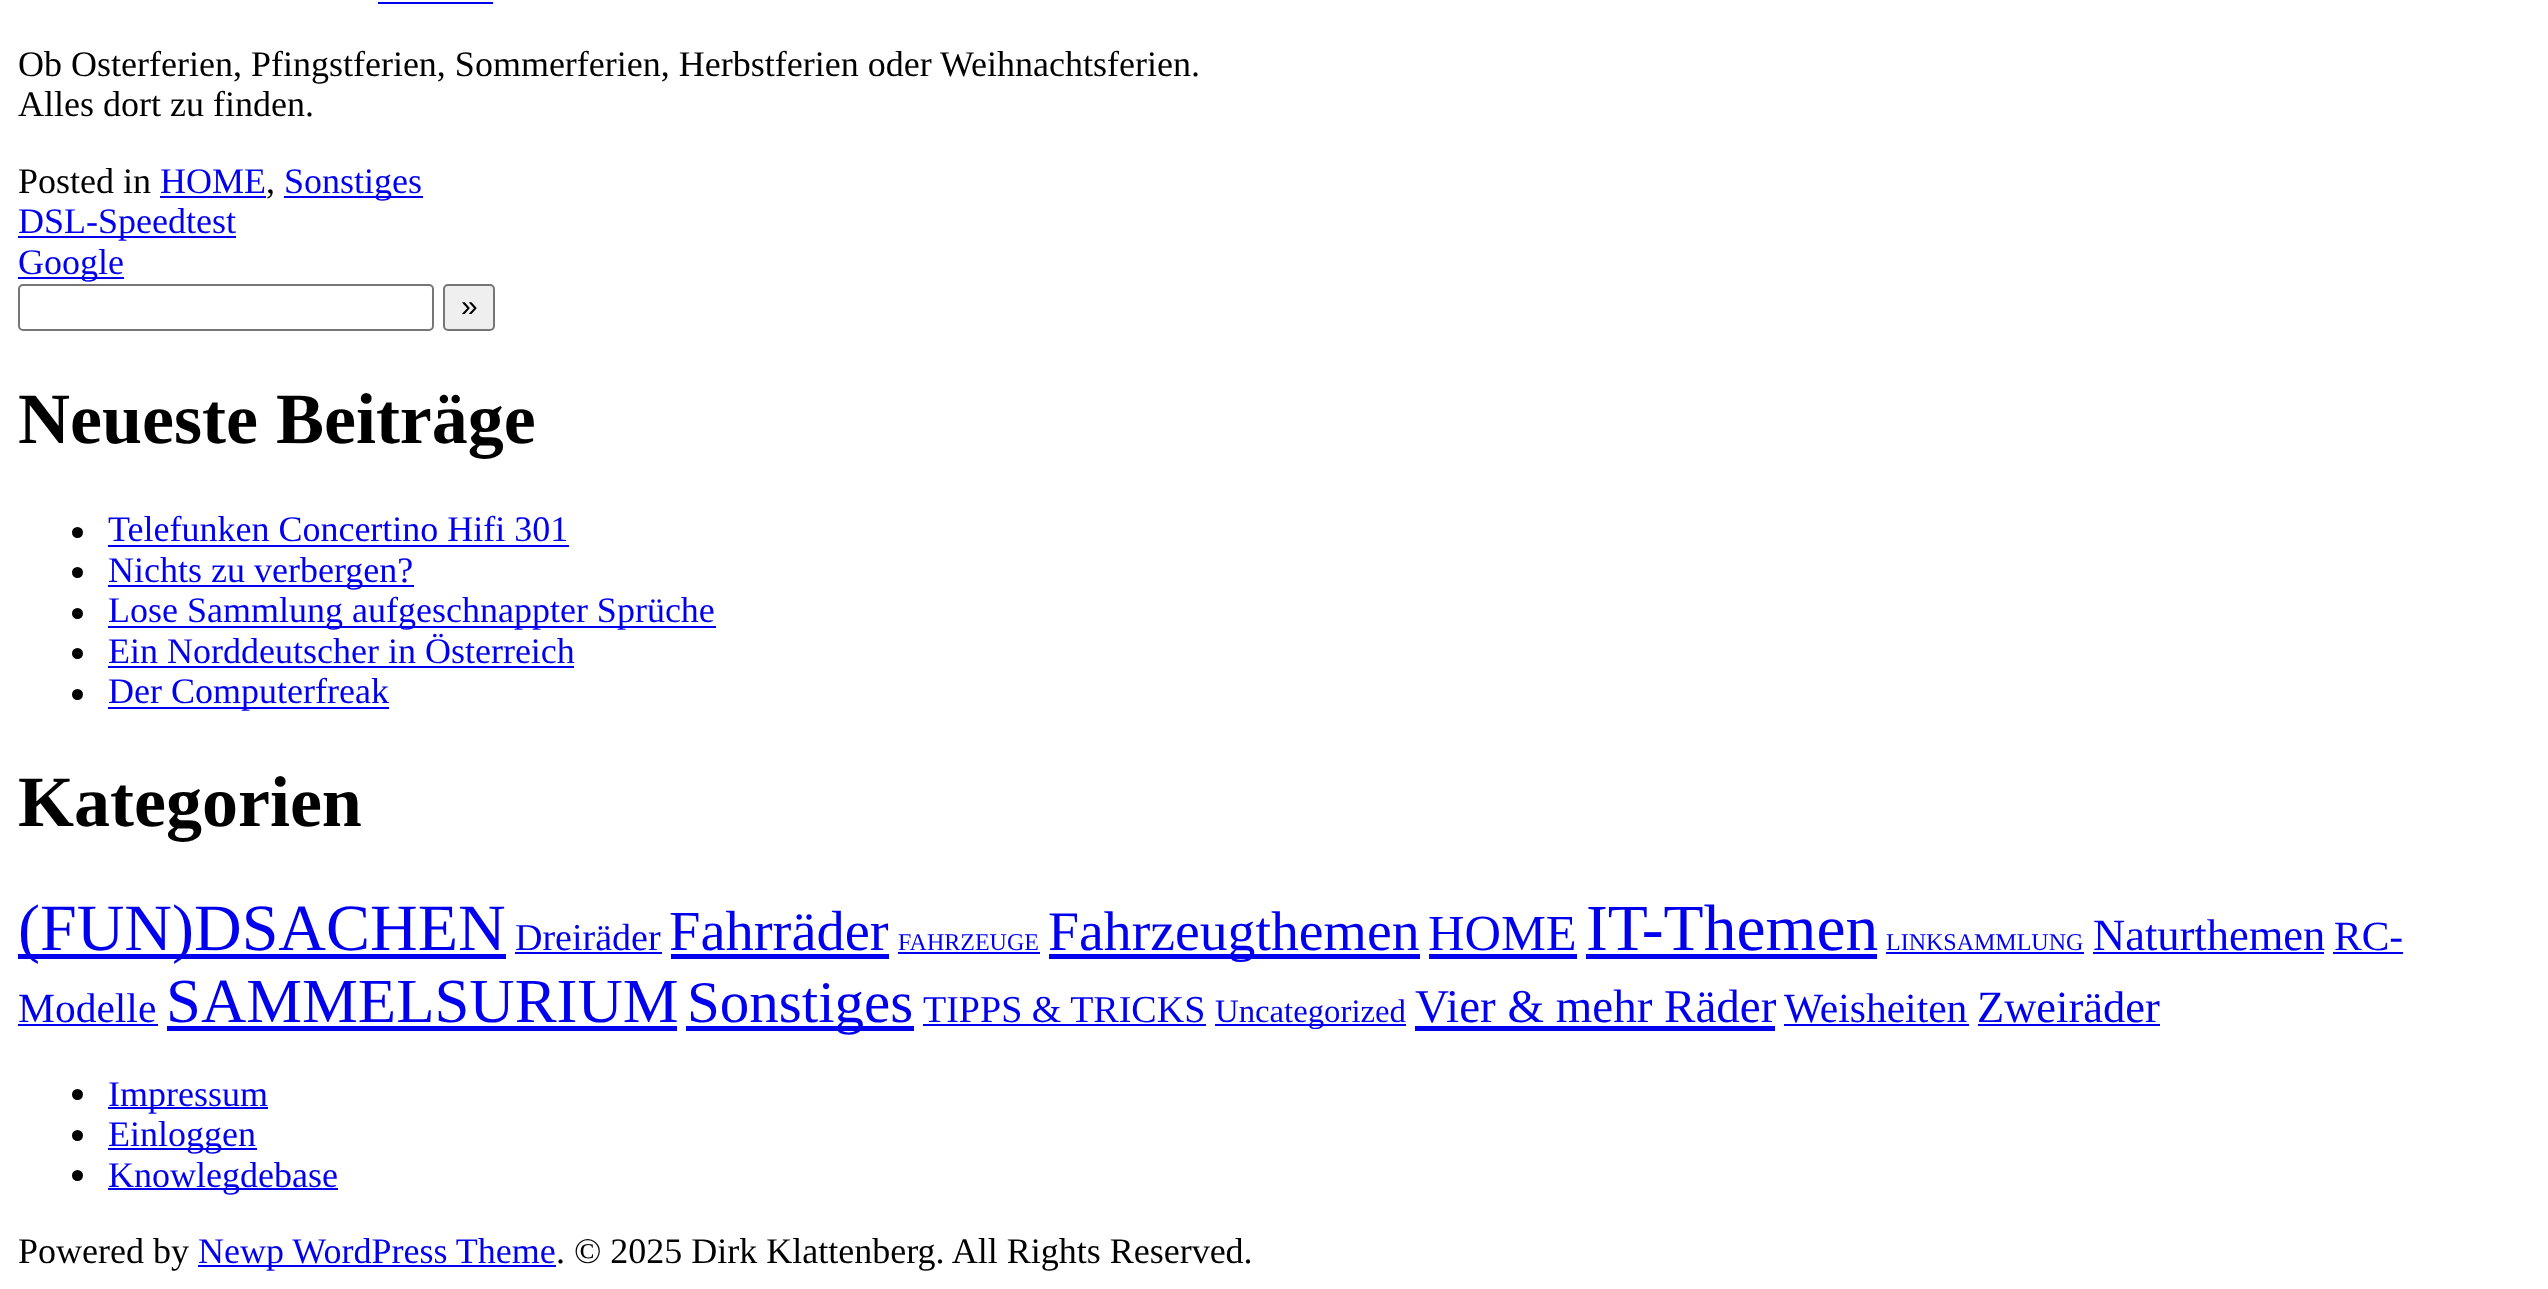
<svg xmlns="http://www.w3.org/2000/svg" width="2548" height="1289">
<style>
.a{font:36px Liberation Serif;fill:#000}
.b{font:36px Liberation Serif;fill:#00e}
.c{font:30px Liberation Sans;fill:#000}
.d{font:bold 72px Liberation Serif;fill:#000}
.e{font:66px Liberation Serif;fill:#00e}
.f{font:38px Liberation Serif;fill:#00e}
.g{font:56.5px Liberation Serif;fill:#00e}
.h{font:24px Liberation Serif;fill:#00e}
.i{font:55.75px Liberation Serif;fill:#00e}
.j{font:50.5px Liberation Serif;fill:#00e}
.k{font:65.5px Liberation Serif;fill:#00e}
.l{font:44.5px Liberation Serif;fill:#00e}
.m{font:41.5px Liberation Serif;fill:#00e}
.n{font:62.75px Liberation Serif;fill:#00e}
.o{font:59px Liberation Serif;fill:#00e}
.p{font:32.75px Liberation Serif;fill:#00e}
.q{font:47px Liberation Serif;fill:#00e}
</style>
<rect width="100%" height="100%" fill="#fff"/>
<path fill="#00e" d="M378 2h115v2H378z"/>
<path fill="#00e" d="M160 196h106v2H160z"/>
<path fill="#00e" d="M284 196h139v2H284z"/>
<path fill="#00e" d="M18 236h218v2H18z"/>
<path fill="#00e" d="M18 277h106v2H18z"/>
<rect fill="none" stroke="#767676" stroke-width="2" x="19" y="285" width="414" height="45" rx="4"/>
<rect fill="#efefef" stroke="#767676" stroke-width="2" x="444" y="285" width="50" height="45" rx="4"/>
<circle fill="#000" cx="77.5" cy="532.5" r="5.5"/>
<path fill="#00e" d="M108 545h461v2H108z"/>
<circle fill="#000" cx="77.5" cy="572.5" r="5.5"/>
<path fill="#00e" d="M108 585h306v2H108z"/>
<circle fill="#000" cx="77.5" cy="613.5" r="5.5"/>
<path fill="#00e" d="M108 626h608v2H108z"/>
<circle fill="#000" cx="77.5" cy="653.5" r="5.5"/>
<path fill="#00e" d="M108 666h466v2H108z"/>
<circle fill="#000" cx="77.5" cy="694.5" r="5.5"/>
<path fill="#00e" d="M108 707h281v2H108z"/>
<path fill="#00e" d="M18 954h488v5H18z"/>
<path fill="#00e" d="M515 952h147v2H515z"/>
<path fill="#00e" d="M671 954h218v5H671z"/>
<path fill="#00e" d="M898 952h142v2H898z"/>
<path fill="#00e" d="M1049 954h371v5H1049z"/>
<path fill="#00e" d="M1429 954h148v5H1429z"/>
<path fill="#00e" d="M1586 954h291v5H1586z"/>
<path fill="#00e" d="M1886 952h198v2H1886z"/>
<path fill="#00e" d="M2093 952h231v2H2093z"/>
<path fill="#00e" d="M2333 952h70v2H2333z"/>
<path fill="#00e" d="M18 1024h140v2H18z"/>
<path fill="#00e" d="M167 1026h510v5H167z"/>
<path fill="#00e" d="M686 1026h228v5H686z"/>
<path fill="#00e" d="M923 1024h283v2H923z"/>
<path fill="#00e" d="M1215 1024h191v2H1215z"/>
<path fill="#00e" d="M1415 1026h360v5H1415z"/>
<path fill="#00e" d="M1784 1024h185v2H1784z"/>
<path fill="#00e" d="M1978 1024h182v2H1978z"/>
<circle fill="#000" cx="77.5" cy="1094.5" r="5.5"/>
<path fill="#00e" d="M108 1107h160v2H108z"/>
<circle fill="#000" cx="77.5" cy="1135.5" r="5.5"/>
<path fill="#00e" d="M108 1148h149v2H108z"/>
<circle fill="#000" cx="77.5" cy="1175.5" r="5.5"/>
<path fill="#00e" d="M108 1188h230v2H108z"/>
<path fill="#00e" d="M198 1265h358v2H198z"/>
<text class="a" x="18" y="76">Ob Osterferien, Pfingstferien, Sommerferien, Herbstferien oder Weihnachtsferien.</text>
<text class="a" x="18" y="116">Alles dort zu finden.</text>
<text class="a" x="18" y="193">Posted in</text>
<text class="b" x="160" y="193">HOME</text>
<text class="a" x="266" y="193">,</text>
<text class="b" x="284" y="193">Sonstiges</text>
<text class="b" x="18" y="233">DSL-Speedtest</text>
<text class="b" x="18" y="274">Google</text>
<text class="c" x="461" y="316">»</text>
<text class="d" x="18" y="443">Neueste Beiträge</text>
<text class="b" x="108" y="541">Telefunken Concertino Hifi 301</text>
<text class="b" x="108" y="582">Nichts zu verbergen?</text>
<text class="b" x="108" y="622">Lose Sammlung aufgeschnappter Sprüche</text>
<text class="b" x="108" y="663">Ein Norddeutscher in Österreich</text>
<text class="b" x="108" y="703">Der Computerfreak</text>
<text class="d" x="18" y="826">Kategorien</text>
<text class="e" x="18" y="950">(FUN)DSACHEN</text>
<text class="f" x="515" y="950">Dreiräder</text>
<text class="g" x="669" y="950">Fahrräder</text>
<text class="h" x="898" y="950">FAHRZEUGE</text>
<text class="i" x="1048" y="950">Fahrzeugthemen</text>
<text class="j" x="1428" y="950">HOME</text>
<text class="k" x="1586" y="950">IT-Themen</text>
<text class="h" x="1886" y="950">LINKSAMMLUNG</text>
<text class="l" x="2093" y="950">Naturthemen</text>
<text class="m" x="2334" y="950">RC-</text>
<text class="m" x="18" y="1022">Modelle</text>
<text class="n" x="166" y="1022">SAMMELSURIUM</text>
<text class="o" x="687" y="1022">Sonstiges</text>
<text class="f" x="923" y="1022">TIPPS &amp; TRICKS</text>
<text class="p" x="1215" y="1022">Uncategorized</text>
<text class="q" x="1415" y="1022">Vier &amp; mehr Räder</text>
<text class="m" x="1784" y="1022">Weisheiten</text>
<text class="l" x="1977" y="1022">Zweiräder</text>
<text class="b" x="108" y="1106">Impressum</text>
<text class="b" x="108" y="1146">Einloggen</text>
<text class="b" x="108" y="1187">Knowlegdebase</text>
<text class="a" x="18" y="1263">Powered by</text>
<text class="b" x="198" y="1263">Newp WordPress Theme</text>
<text class="a" x="556" y="1263">. © 2025 Dirk Klattenberg. All Rights Reserved.</text>
</svg>
